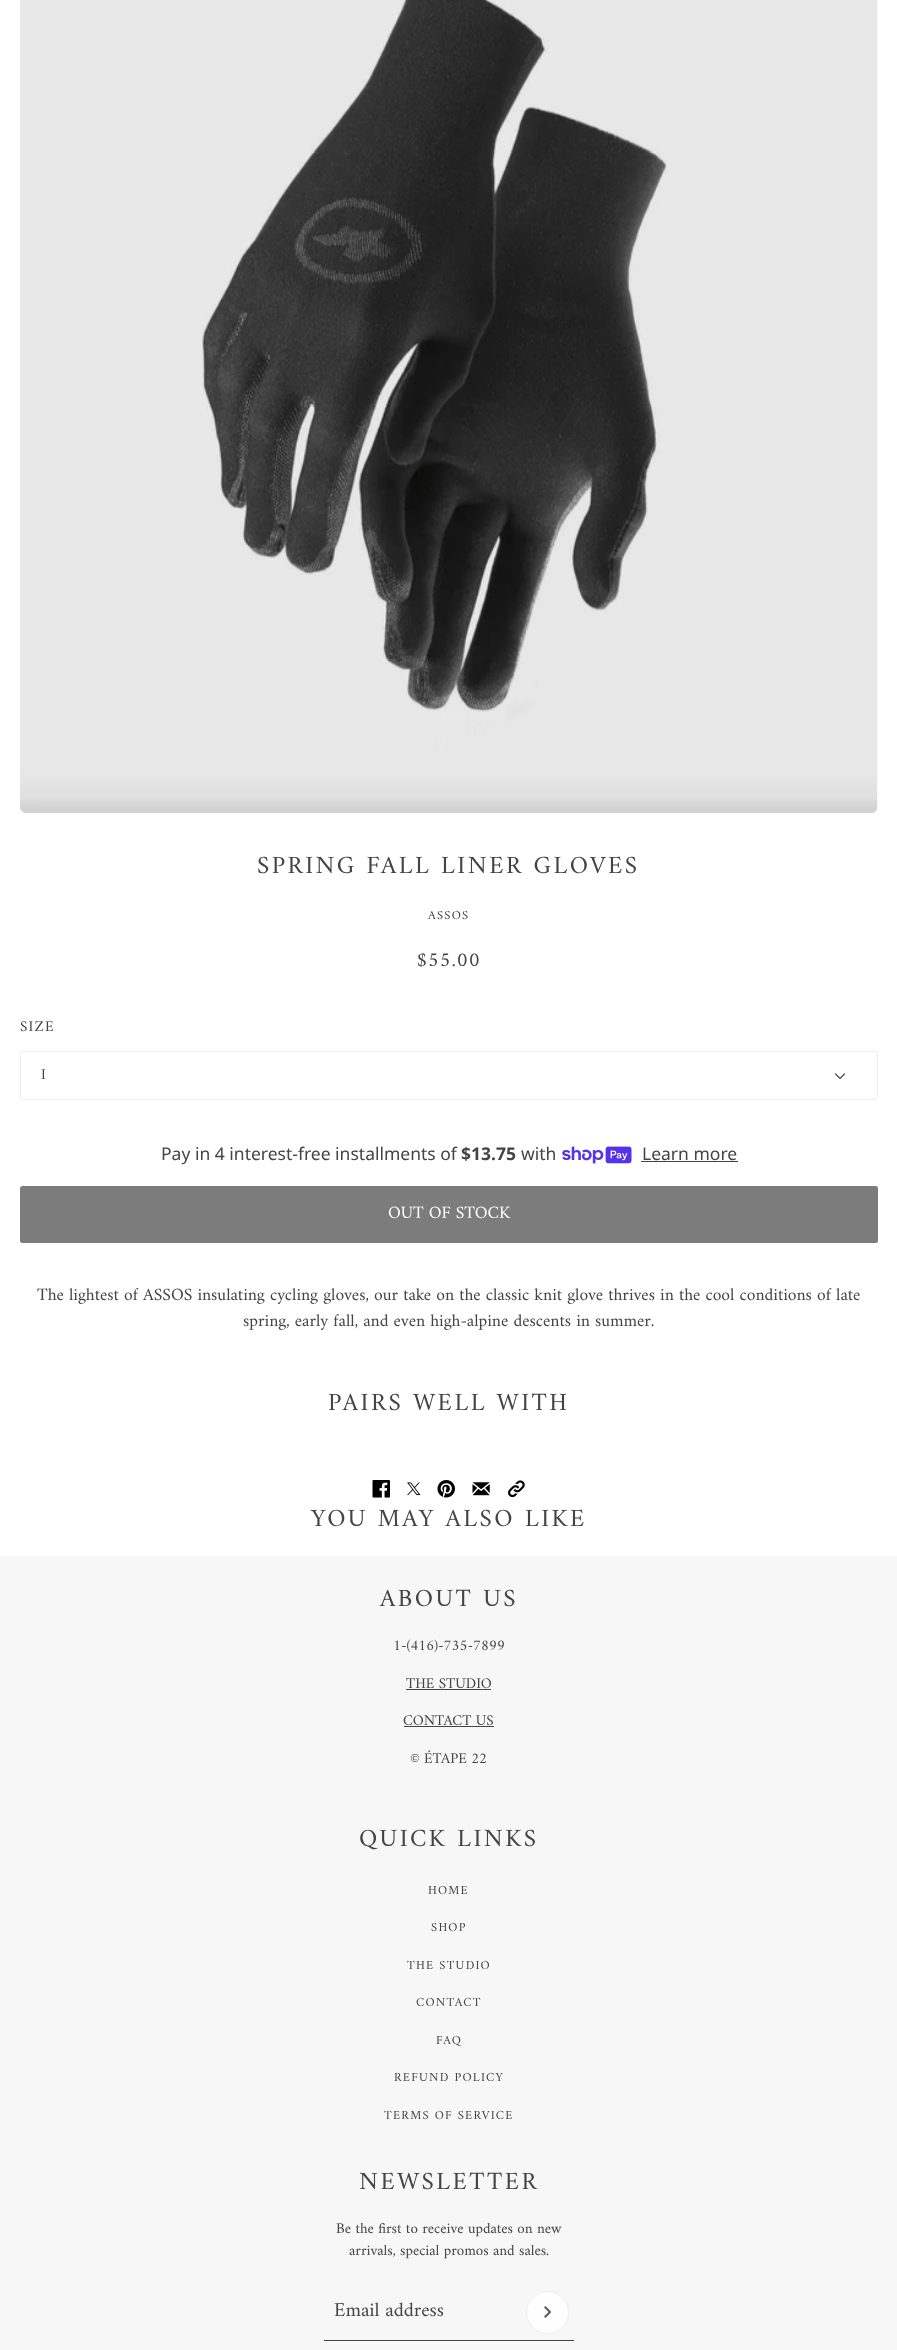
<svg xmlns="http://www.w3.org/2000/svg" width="897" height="2350">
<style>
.a{font:25px Amiri;letter-spacing:2.5px;fill:#444}
.b{font:12.5px Amiri;letter-spacing:1.25px;fill:#444}
.c{font:20px Amiri;letter-spacing:1.25px;fill:#444}
.d{font:15px Amiri;letter-spacing:1.25px;fill:#444}
.e{font:17.5px Noto Sans;fill:#444}
.f{font:bold 17.5px Noto Sans;fill:#444}
.g{font:17.5px Amiri;fill:#fff}
.h{font:17.5px Amiri;fill:#444}
.i{font:15px Amiri;fill:#444}
.j{font:20px Amiri;fill:#444}
</style>
<rect width="100%" height="100%" fill="#fff"/>
<image href="1.png" x="20" y="0" width="858" height="813"/>
<rect fill="none" stroke="#ececec" x="20.5" y="1051.5" width="857" height="48" rx="2"/>
<image href="2.png" x="834" y="1073" width="12" height="7"/>
<image href="3.png" x="562" y="1146" width="70" height="18"/>
<path fill="#444" d="M641 1161h97v1H641z"/>
<rect fill="#7c7c7c" x="20" y="1186" width="858" height="57" rx="2.5"/>
<image href="4.png" x="372" y="1480" width="18" height="18"/>
<image href="5.png" x="407" y="1482" width="14" height="14"/>
<image href="6.png" x="437" y="1480" width="18" height="18"/>
<image href="7.png" x="472" y="1482" width="18" height="14"/>
<image href="8.png" x="508" y="1480" width="17" height="18"/>
<path fill="#f7f7f7" d="M0 1556h897v794H0z"/>
<path fill="#444" d="M406 1689h85v1H406z"/>
<path fill="#444" d="M404 1726h90v1H404z"/>
<path fill="#444" d="M324 2340h250v1H324z"/>
<circle fill="#fefefe" cx="547.5" cy="2312.5" r="21.5"/>
<circle fill="none" stroke="#5f5f5f1a" cx="547.5" cy="2312.5" r="21"/>
<path fill="#5f5f5f" d="M544 2316.5l5.5-5.5l1.5 1.5l-5.5 5.5z"/>
<path fill="#5f5f5f" d="M545.5 2306l5.5 5.5l-1.5 1.5l-5.5-5.5z"/>
<text class="a" x="257" y="873">SPRING FALL LINER GLOVES</text>
<text class="b" x="428" y="919">ASSOS</text>
<text class="c" x="417" y="966">$55.00</text>
<text class="d" x="20" y="1031">SIZE</text>
<text class="d" x="41" y="1079">I</text>
<text class="e" x="161" y="1160">Pay in 4 interest-free installments of</text>
<text class="f" x="461" y="1160">$13.75</text>
<text class="e" x="521" y="1160">with</text>
<text class="e" x="642" y="1160">Learn more</text>
<text class="g" x="388" y="1218">OUT OF STOCK</text>
<text class="h" x="37" y="1300">The lightest of ASSOS insulating cycling gloves, our take on the classic knit glove thrives in the cool conditions of late</text>
<text class="h" x="243" y="1326">spring, early fall, and even high-alpine descents in summer.</text>
<text class="a" x="328" y="1410">PAIRS WELL WITH</text>
<text class="a" x="311" y="1526">YOU MAY ALSO LIKE</text>
<text class="a" x="380" y="1606">ABOUT US</text>
<text class="i" x="393" y="1650">1-(416)-735-7899</text>
<text class="i" x="406" y="1688">THE STUDIO</text>
<text class="i" x="403" y="1725">CONTACT US</text>
<text class="i" x="410" y="1763">© ÉTAPE 22</text>
<text class="a" x="359" y="1846">QUICK LINKS</text>
<text class="b" x="428" y="1894">HOME</text>
<text class="b" x="431" y="1931">SHOP</text>
<text class="b" x="407" y="1969">THE STUDIO</text>
<text class="b" x="416" y="2006">CONTACT</text>
<text class="b" x="436" y="2044">FAQ</text>
<text class="b" x="394" y="2081">REFUND POLICY</text>
<text class="b" x="384" y="2119">TERMS OF SERVICE</text>
<text class="a" x="359" y="2189">NEWSLETTER</text>
<text class="i" x="336" y="2233">Be the first to receive updates on new</text>
<text class="i" x="349" y="2255">arrivals, special promos and sales.</text>
<text class="j" x="334" y="2316">Email address</text>
</svg>
